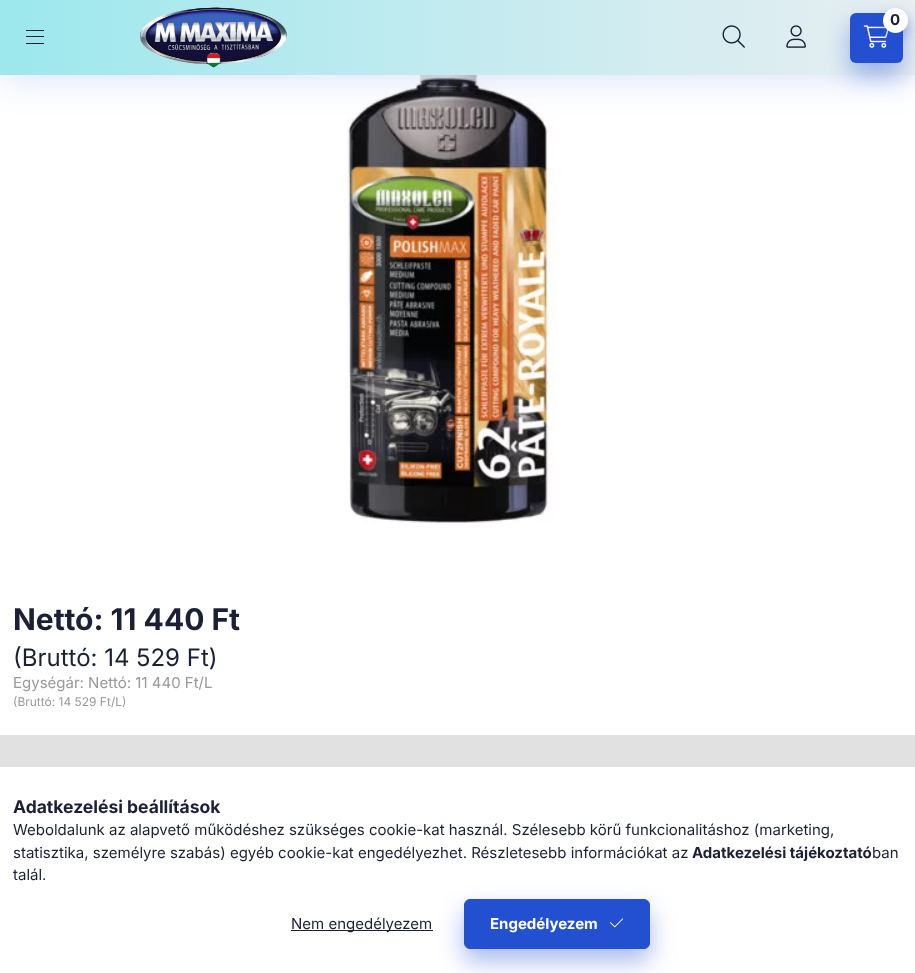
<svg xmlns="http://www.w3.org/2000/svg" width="915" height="973">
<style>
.a{font:bold 15px Inter;fill:#1b2036}
.b{font:bold 30px Inter;fill:#1b2036}
.c{font:24px Inter;fill:#1b2036}
.d{font:15px Inter;fill:#999}
.e{font:12px Inter;fill:#999}
.f{font:bold 17.5px Inter;fill:#1b2036}
.g{font:15px Inter;fill:#1b2036}
.h{font:bold 15px Inter;fill:#fff}
</style>
<defs>
<linearGradient id="g1" gradientUnits="userSpaceOnUse" x1="0" y1="487" x2="915" y2="487"><stop offset="0" stop-color="#9ce8ed"/><stop offset="1" stop-color="#e8eef2"/></linearGradient>
</defs>
<rect width="100%" height="100%" fill="#fff"/>
<image href="5.png" x="345" y="75" width="210" height="449"/>
<path fill="#234fd133" filter="blur(19px)" d="M0 0h915v75H0z"/>
<path fill="url(#g1)" d="M0 0h915v75H0z"/>
<path fill="#1b2036" d="M26 30h18v1H26z"/>
<path fill="#1b2036" d="M26 36h18v1H26z"/>
<path fill="#1b2036" d="M26 43h18v1H26z"/>
<image href="1.png" x="139" y="7" width="149" height="61"/>
<rect fill="#234fd166" filter="blur(12.5px)" x="850" y="25" width="53" height="50" rx="6"/>
<rect fill="#234fd1" x="850" y="13" width="53" height="50" rx="6"/>
<image href="2.png" x="863" y="25" width="26" height="23"/>
<rect fill="#234fd166" filter="blur(6px)" x="883" y="14" width="25" height="25" rx="12.5"/>
<circle fill="#fff" cx="895.5" cy="20.5" r="12.5"/>
<image href="3.png" x="722" y="25" width="23" height="23"/>
<image href="4.png" x="786" y="25" width="20" height="23"/>
<path fill="#e1e1e1" d="M0 735h915v32H0z"/>
<path fill="#1b2036" d="M291 930h142v1H291z"/>
<rect fill="#234fd166" filter="blur(12.5px)" x="464" y="911" width="186" height="50" rx="6"/>
<rect fill="#234fd1" stroke="#234fd1" x="464.5" y="899.5" width="185" height="49" rx="5.5"/>
<image href="6.png" x="610" y="918" width="14" height="10"/>
<text class="a" x="890" y="25">0</text>
<text class="b" x="13" y="630">Nettó: 11 440 Ft</text>
<text class="c" x="13" y="666">(Bruttó: 14 529 Ft)</text>
<text class="d" x="13" y="688">Egységár: Nettó: 11 440 Ft/L</text>
<text class="e" x="13" y="706">(Bruttó: 14 529 Ft/L)</text>
<text class="f" x="13" y="813">Adatkezelési beállítások</text>
<text class="g" x="13" y="835">Weboldalunk az alapvető működéshez szükséges cookie-kat használ. Szélesebb körű funkcionalitáshoz (marketing,</text>
<text class="g" x="13" y="858">statisztika, személyre szabás) egyéb cookie-kat engedélyezhet. Részletesebb információkat az</text>
<text class="a" x="692" y="858">Adatkezelési tájékoztató</text>
<text class="g" x="872" y="858">ban</text>
<text class="g" x="13" y="880">talál.</text>
<text class="g" x="291" y="929">Nem engedélyezem</text>
<text class="h" x="490" y="929">Engedélyezem</text>
</svg>
